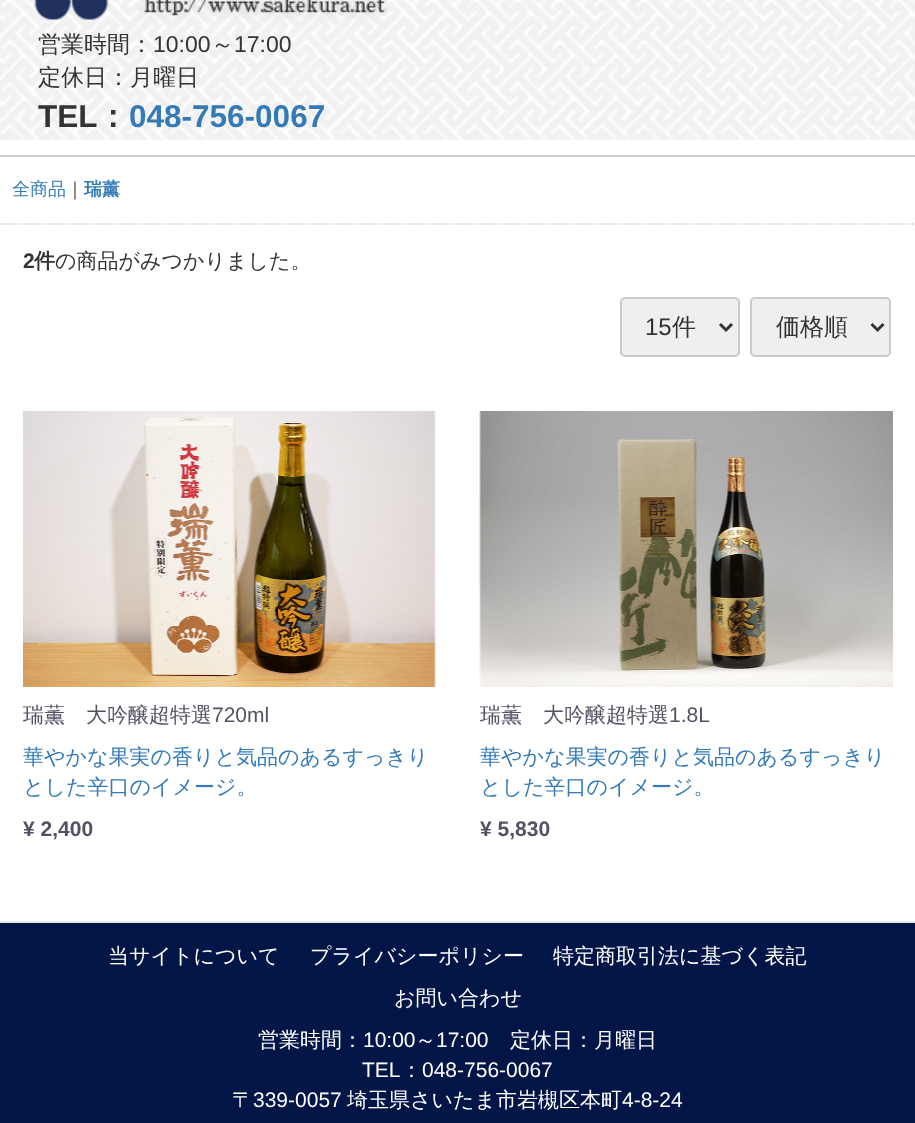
<svg xmlns="http://www.w3.org/2000/svg" width="915" height="1123">
<style>
.a{font:500 23px WenQuanYi Zen Hei;fill:#333}
.b{font:23px Liberation Sans;fill:#333}
.c{font:bold 31.5px Liberation Sans;fill:#333}
.d{font:bold 31.5px WenQuanYi Zen Hei;fill:#333}
.e{font:bold 31.5px Liberation Sans;fill:#337ab7}
.f{font:500 18px WenQuanYi Zen Hei;fill:#337ab7}
.g{font:500 18px WenQuanYi Zen Hei;fill:#333}
.h{font:bold 18px WenQuanYi Zen Hei;fill:#337ab7}
.i{font:bold 21px Liberation Sans;fill:#333}
.j{font:bold 21px WenQuanYi Zen Hei;fill:#333}
.k{font:500 21px WenQuanYi Zen Hei;fill:#333}
.l{font:24px Liberation Sans;fill:#333}
.m{font:500 24px WenQuanYi Zen Hei;fill:#333}
.n{font:500 21px WenQuanYi Zen Hei;fill:#525263}
.o{font:21px Liberation Sans;fill:#525263}
.p{font:500 21px WenQuanYi Zen Hei;fill:#337ab7}
.q{font:bold 21px Liberation Sans;fill:#525263}
.r{font:500 21px WenQuanYi Zen Hei;fill:#fff}
.s{font:21px Liberation Sans;fill:#fff}
</style>
<rect width="100%" height="100%" fill="#fff"/>
<path fill="#f1f1f1" d="M0 0h915v140H0z"/>
<image href="1.png" x="0" y="0" width="915" height="140"/>
<image href="2.png" x="34" y="0" width="354" height="20"/>
<path fill="#ccc" d="M0 155h915v2H0z"/>
<path fill="none" stroke="#ccc" stroke-width="1.5" stroke-dasharray="1.5 1.5" d="M0 224h915"/>
<rect fill="#efefef" stroke="#c4ccce" stroke-width="2" x="621" y="298" width="118" height="58" rx="4"/>
<path fill="none" stroke="#333" stroke-width="3" d="M720 324l6 6l6-6"/>
<rect fill="#efefef" stroke="#c4ccce" stroke-width="2" x="751" y="298" width="139" height="58" rx="4"/>
<path fill="none" stroke="#333" stroke-width="3" d="M871.5 324l6 6l6-6"/>
<image href="3.png" x="23" y="411" width="413" height="276"/>
<image href="4.png" x="479" y="411" width="414" height="276"/>
<path fill="#011547" d="M0 923h915v200H0z"/>
<path fill="#e8e8e8" d="M0 921h915v2H0z"/>
<text class="a" x="38" y="52">営業時間：</text>
<text class="b" x="153" y="52">10:00</text>
<text class="a" x="211" y="52">～</text>
<text class="b" x="234" y="52">17:00</text>
<text class="a" x="38" y="85">定休日：月曜日</text>
<text class="c" x="38" y="127">TEL</text>
<text class="d" x="97" y="127">：</text>
<text class="e" x="129" y="127">048-756-0067</text>
<text class="f" x="12" y="195">全商品</text>
<text class="g" x="66" y="195">｜</text>
<text class="h" x="84" y="195">瑞薰</text>
<text class="i" x="23" y="268">2</text>
<text class="j" x="34" y="268">件</text>
<text class="k" x="55" y="268">の商品がみつかりました。</text>
<text class="l" x="645" y="335">15</text>
<text class="m" x="672" y="335">件</text>
<text class="m" x="776" y="335">価格順</text>
<text class="n" x="23" y="722">瑞薫　大吟醸超特選</text>
<text class="o" x="212" y="722">720ml</text>
<text class="p" x="23" y="764">華やかな果実の香りと気品のあるすっきり</text>
<text class="p" x="23" y="794">とした辛口のイメージ。</text>
<text class="q" x="23" y="836">¥ 2,400</text>
<text class="n" x="480" y="722">瑞薫　大吟醸超特選</text>
<text class="o" x="669" y="722">1.8L</text>
<text class="p" x="480" y="764">華やかな果実の香りと気品のあるすっきり</text>
<text class="p" x="480" y="794">とした辛口のイメージ。</text>
<text class="q" x="480" y="836">¥ 5,830</text>
<text class="r" x="108" y="963">当サイトについて</text>
<text class="r" x="310" y="963">プライバシーポリシー</text>
<text class="r" x="553" y="963">特定商取引法に基づく表記</text>
<text class="r" x="394" y="1005">お問い合わせ</text>
<text class="r" x="258" y="1047">営業時間：</text>
<text class="s" x="363" y="1047">10:00</text>
<text class="r" x="415" y="1047">～</text>
<text class="s" x="436" y="1047">17:00</text>
<text class="r" x="510" y="1047">定休日：月曜日</text>
<text class="s" x="362" y="1077">TEL</text>
<text class="r" x="401" y="1077">：</text>
<text class="s" x="422" y="1077">048-756-0067</text>
<text class="r" x="232" y="1107">〒</text>
<text class="s" x="253" y="1107">339-0057</text>
<text class="r" x="347" y="1107">埼玉県さいたま市岩槻区本町</text>
<text class="s" x="622" y="1107">4-8-24</text>
</svg>
